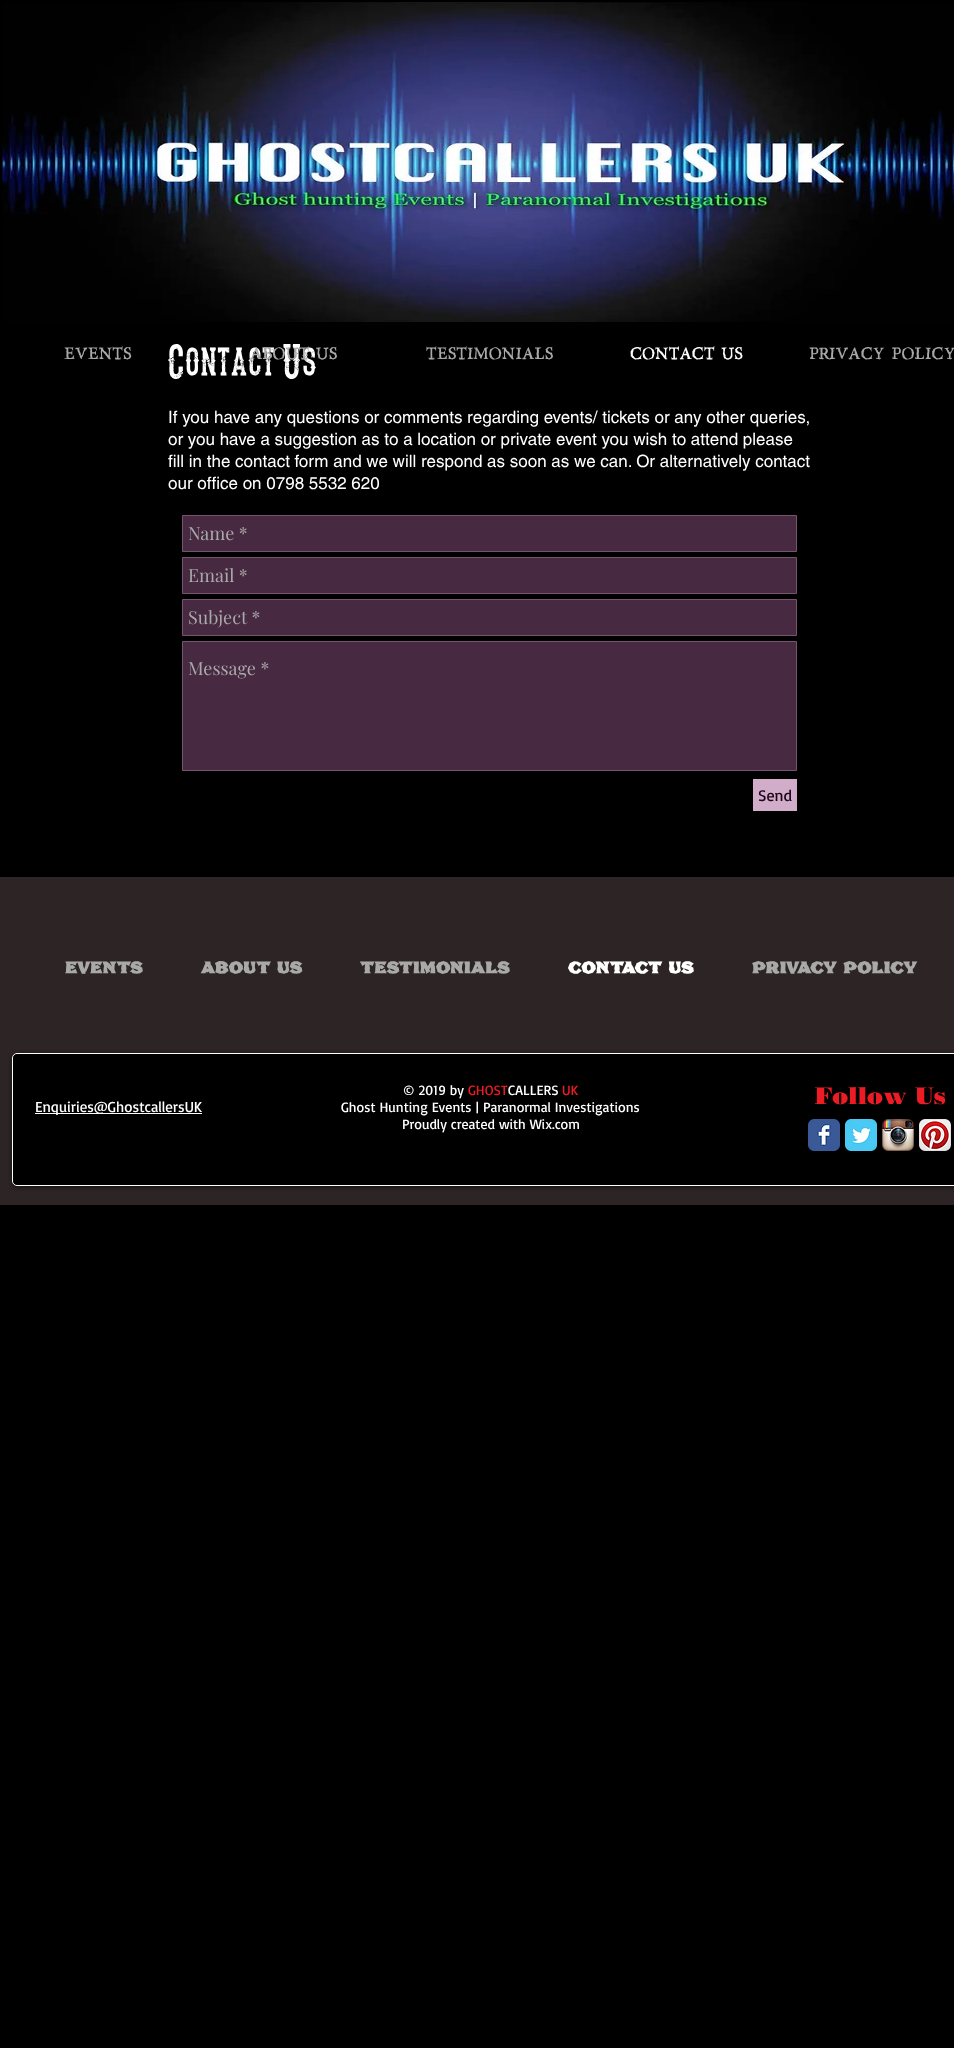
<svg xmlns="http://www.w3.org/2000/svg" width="954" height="2048">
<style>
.a{font:35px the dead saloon;fill:#fff}
.b{font:17px helvetica;fill:#fff}
.c{font:18px Playfair Display;fill:#a9a9a9}
.d{font:16px Basic;fill:#1c0417}
.e{font:16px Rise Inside;fill:#a9a9a9}
.f{font:16px Rise Inside;fill:#fff}
.g{font:16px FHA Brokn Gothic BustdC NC;fill:#a9a9a9}
.h{font:16px FHA Brokn Gothic BustdC NC;fill:#fff}
.i{font:14px Basic;fill:#fff}
.j{font:14px Basic;fill:#ed1c24}
.k{font:900 24px 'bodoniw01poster';fill:#ed1c24}
.l{font:15px Basic;fill:#fff}
</style>
<rect width="100%" height="100%" fill="#000"/>
<path fill="#472941" stroke="#75546e" d="M182.5 515.5h614v36H182.5z"/>
<path fill="#472941" stroke="#75546e" d="M182.5 557.5h614v36H182.5z"/>
<path fill="#472941" stroke="#75546e" d="M182.5 599.5h614v36H182.5z"/>
<path fill="#472941" stroke="#75546e" d="M182.5 641.5h614v129H182.5z"/>
<path fill="#d1adc9" d="M753 779h44v32H753z"/>
<image href="1.png" x="2" y="2" width="952" height="320"/>
<path fill="#2d2525" d="M0 877h954v328H0z"/>
<rect fill="#00000099" filter="blur(2px)" x="12" y="1054" width="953" height="133" rx="5"/>
<rect fill="#000" stroke="#fff" x="12.5" y="1053.5" width="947" height="132" rx="4.5"/>
<path fill="#fff" d="M35 1113h167v1H35z"/>
<image href="2.png" x="808" y="1119" width="32" height="32"/>
<image href="3.png" x="845" y="1119" width="32" height="32"/>
<image href="4.png" x="882" y="1119" width="32" height="32"/>
<image href="5.png" x="919" y="1119" width="32" height="32"/>
<text class="a" x="168" y="372">Contact Us</text>
<text class="b" x="168" y="423">If you have any questions or comments regarding events/ tickets or any other queries,</text>
<text class="b" x="168" y="445">or you have a suggestion as to a location or private event you wish to attend please</text>
<text class="b" x="168" y="467">fill in the contact form and we will respond as soon as we can. Or alternatively contact</text>
<text class="b" x="168" y="489">our office on 0798 5532 620</text>
<text class="c" x="188" y="540">Name *</text>
<text class="c" x="188" y="582">Email *</text>
<text class="c" x="188" y="624">Subject *</text>
<text class="c" x="188" y="675">Message *</text>
<text class="d" x="758" y="801">Send</text>
<text class="e" x="64" y="359">EVENTS</text>
<text class="e" x="250" y="359">ABOUT US</text>
<text class="e" x="426" y="359">TESTIMONIALS</text>
<text class="f" x="630" y="359">CONTACT US</text>
<text class="e" x="809" y="359">PRIVACY POLICY</text>
<text class="g" x="65" y="973">EVENTS</text>
<text class="g" x="201" y="973">ABOUT US</text>
<text class="g" x="360" y="973">TESTIMONIALS</text>
<text class="h" x="568" y="973">CONTACT US</text>
<text class="g" x="752" y="973">PRIVACY POLICY</text>
<text class="i" x="403" y="1095">© 2019 by</text>
<text class="j" x="468" y="1095">GHOST</text>
<text class="i" x="508" y="1095">CALLERS</text>
<text class="j" x="562" y="1095">UK</text>
<text class="i" x="341" y="1112">Ghost Hunting Events | Paranormal Investigations</text>
<text class="i" x="402" y="1129">Proudly created with Wix.com</text>
<text class="k" x="815" y="1104">Follow Us</text>
<text class="l" x="35" y="1112">Enquiries@GhostcallersUK</text>
</svg>
